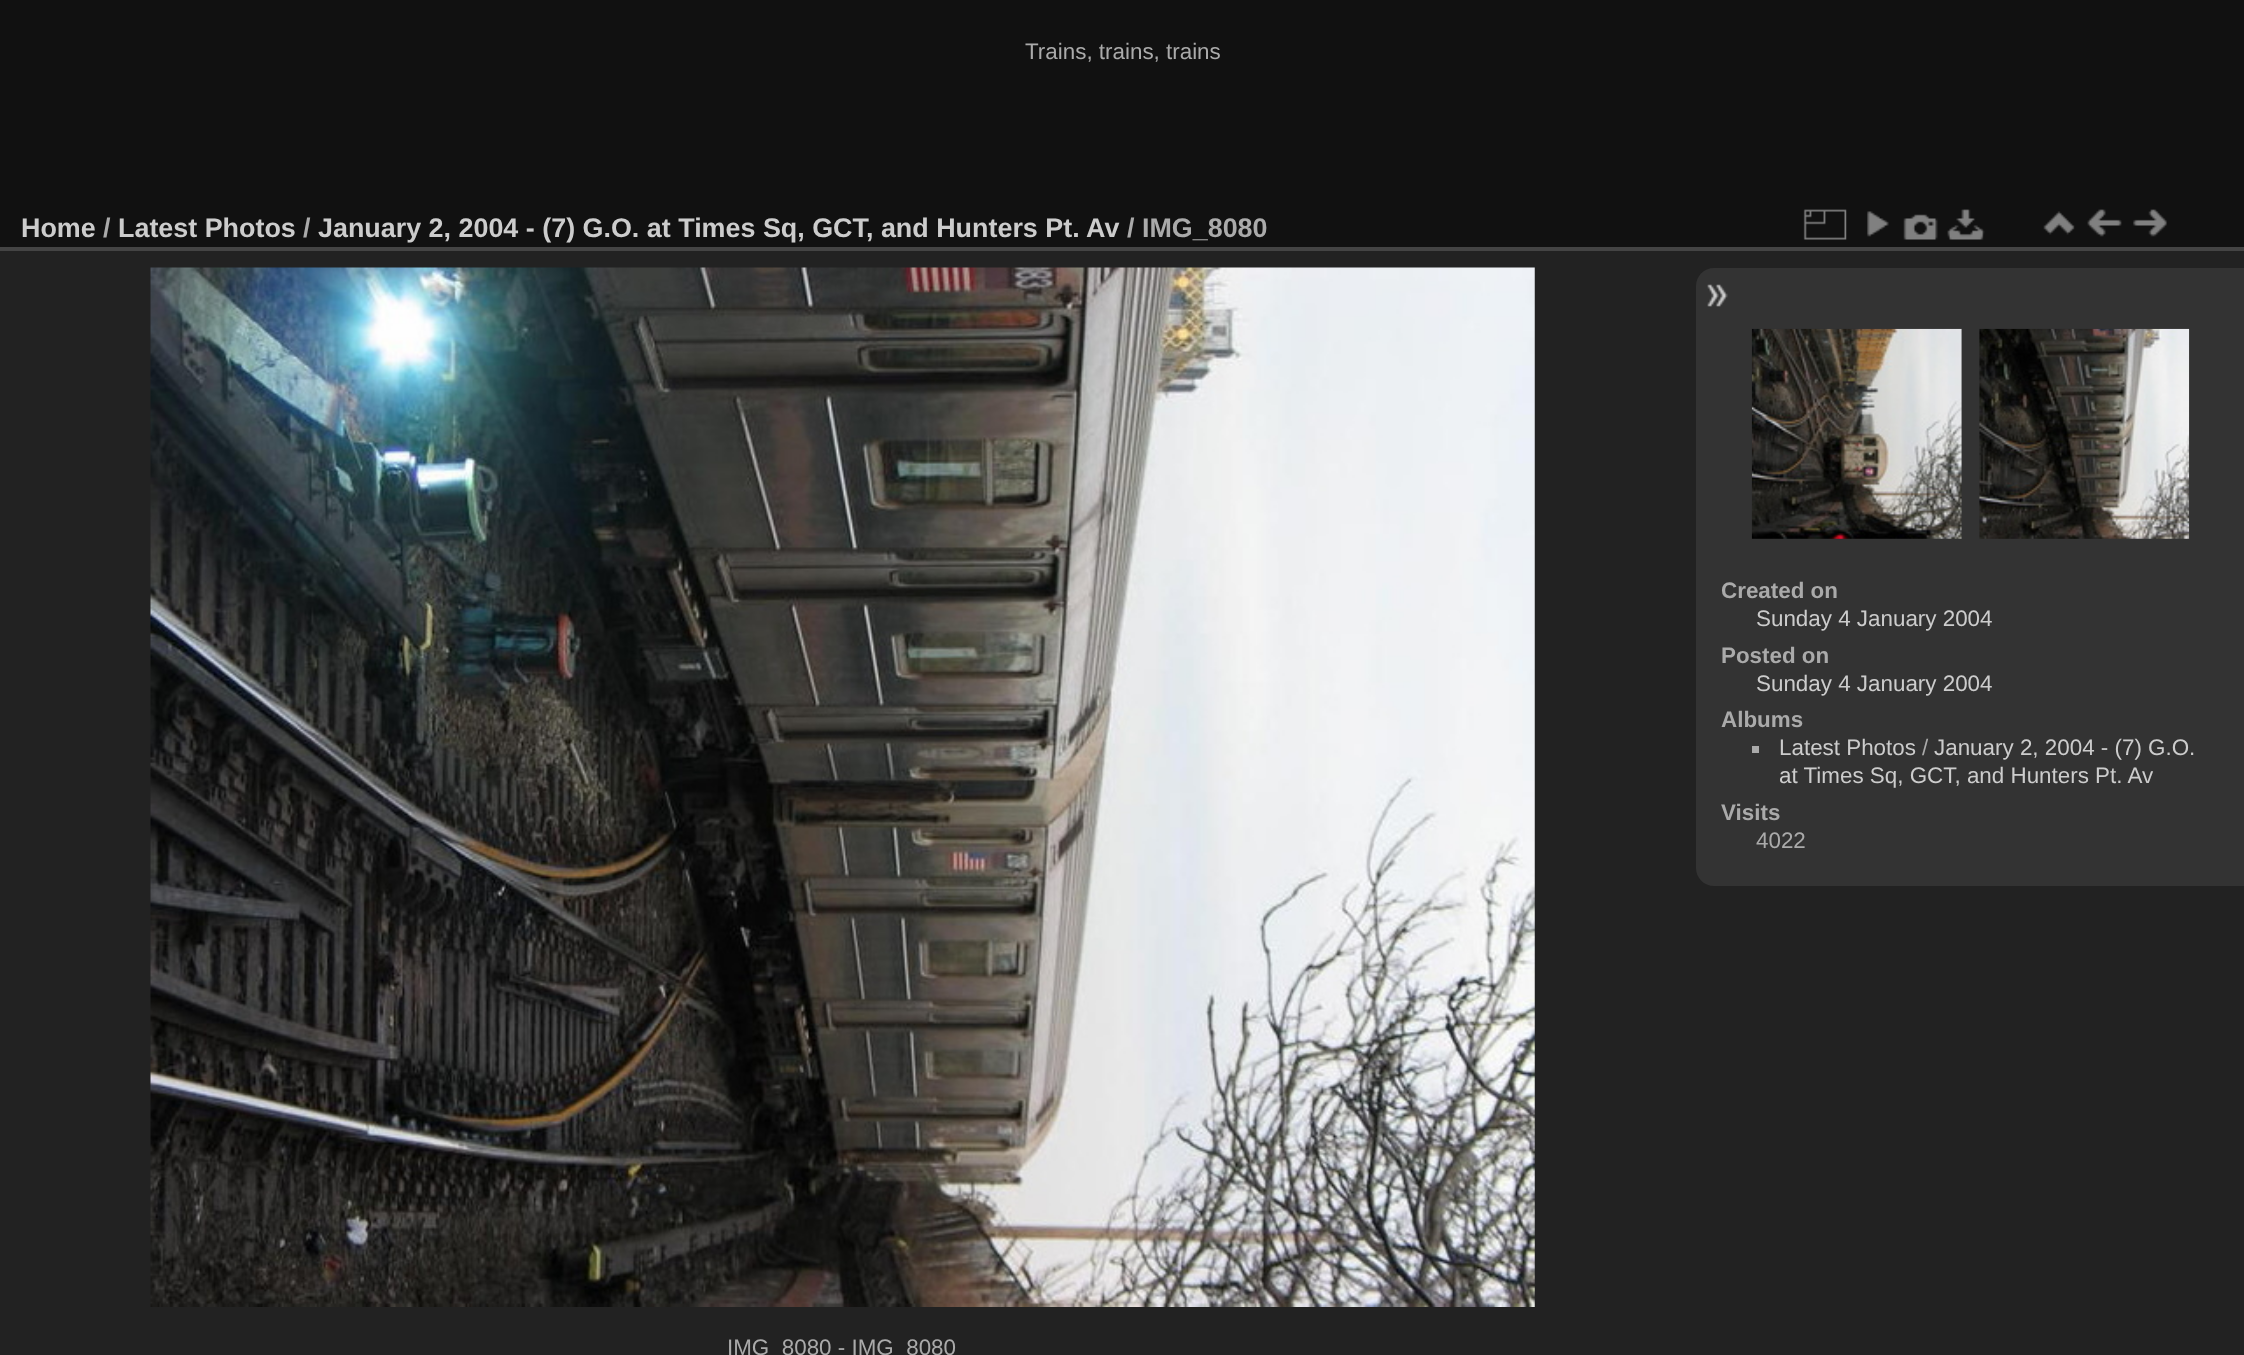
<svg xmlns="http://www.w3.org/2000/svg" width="2244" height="1355">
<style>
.a{font:22.4px Liberation Sans;fill:#aaa}
.b{font:bold 26.9px Liberation Sans;fill:#ccc}
.c{font:bold 26.9px Liberation Sans;fill:#aaa}
.d{font:bold 22.4px Liberation Sans;fill:#aaa}
.e{font:22.4px Liberation Sans;fill:#ccc}
</style>
<rect width="100%" height="100%" fill="#111"/>
<path fill="#222" d="M0 251h2244v1104H0z"/>
<path fill="#444" d="M0 247h2244v4H0z"/>
<image href="1.png" x="1803" y="209" width="44" height="31"/>
<image href="2.png" x="1867" y="211" width="22" height="26"/>
<image href="3.png" x="1903" y="214" width="35" height="26"/>
<image href="4.png" x="1947" y="209" width="38" height="31"/>
<image href="5.png" x="2043" y="211" width="32" height="24"/>
<image href="6.png" x="2087" y="209" width="35" height="28"/>
<image href="7.png" x="2133" y="209" width="34" height="28"/>
<path fill="#333" d="M1714 268h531v618h-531c-10 0-18-8-18-18v-582c0-10 8-18 18-18z"/>
<image href="8.png" x="1707" y="284" width="21" height="23"/>
<image href="9.png" x="1751" y="328" width="211" height="211"/>
<image href="10.png" x="1979" y="328" width="211" height="211"/>
<path fill="#aaa" d="M1752 746h7v7H1752z"/>
<image href="11.png" x="150" y="267" width="1385" height="1040"/>
<text class="a" x="1025" y="59">Trains, trains, trains</text>
<text class="b" x="21" y="237">Home</text>
<text class="c" x="103" y="237">/</text>
<text class="b" x="118" y="237">Latest Photos</text>
<text class="c" x="303" y="237">/</text>
<text class="b" x="318" y="237">January 2, 2004 - (7) G.O. at Times Sq, GCT, and Hunters Pt. Av</text>
<text class="c" x="1127" y="237">/ IMG_8080</text>
<text class="d" x="1721" y="598">Created on</text>
<text class="e" x="1756" y="626">Sunday 4 January 2004</text>
<text class="d" x="1721" y="663">Posted on</text>
<text class="e" x="1756" y="691">Sunday 4 January 2004</text>
<text class="d" x="1721" y="727">Albums</text>
<text class="e" x="1779" y="755">Latest Photos</text>
<text class="a" x="1922" y="755">/</text>
<text class="e" x="1934" y="755">January 2, 2004 - (7) G.O.</text>
<text class="e" x="1779" y="783">at Times Sq, GCT, and Hunters Pt. Av</text>
<text class="d" x="1721" y="820">Visits</text>
<text class="a" x="1756" y="848">4022</text>
<text class="a" x="727" y="1355">IMG_8080 - IMG_8080</text>
</svg>
